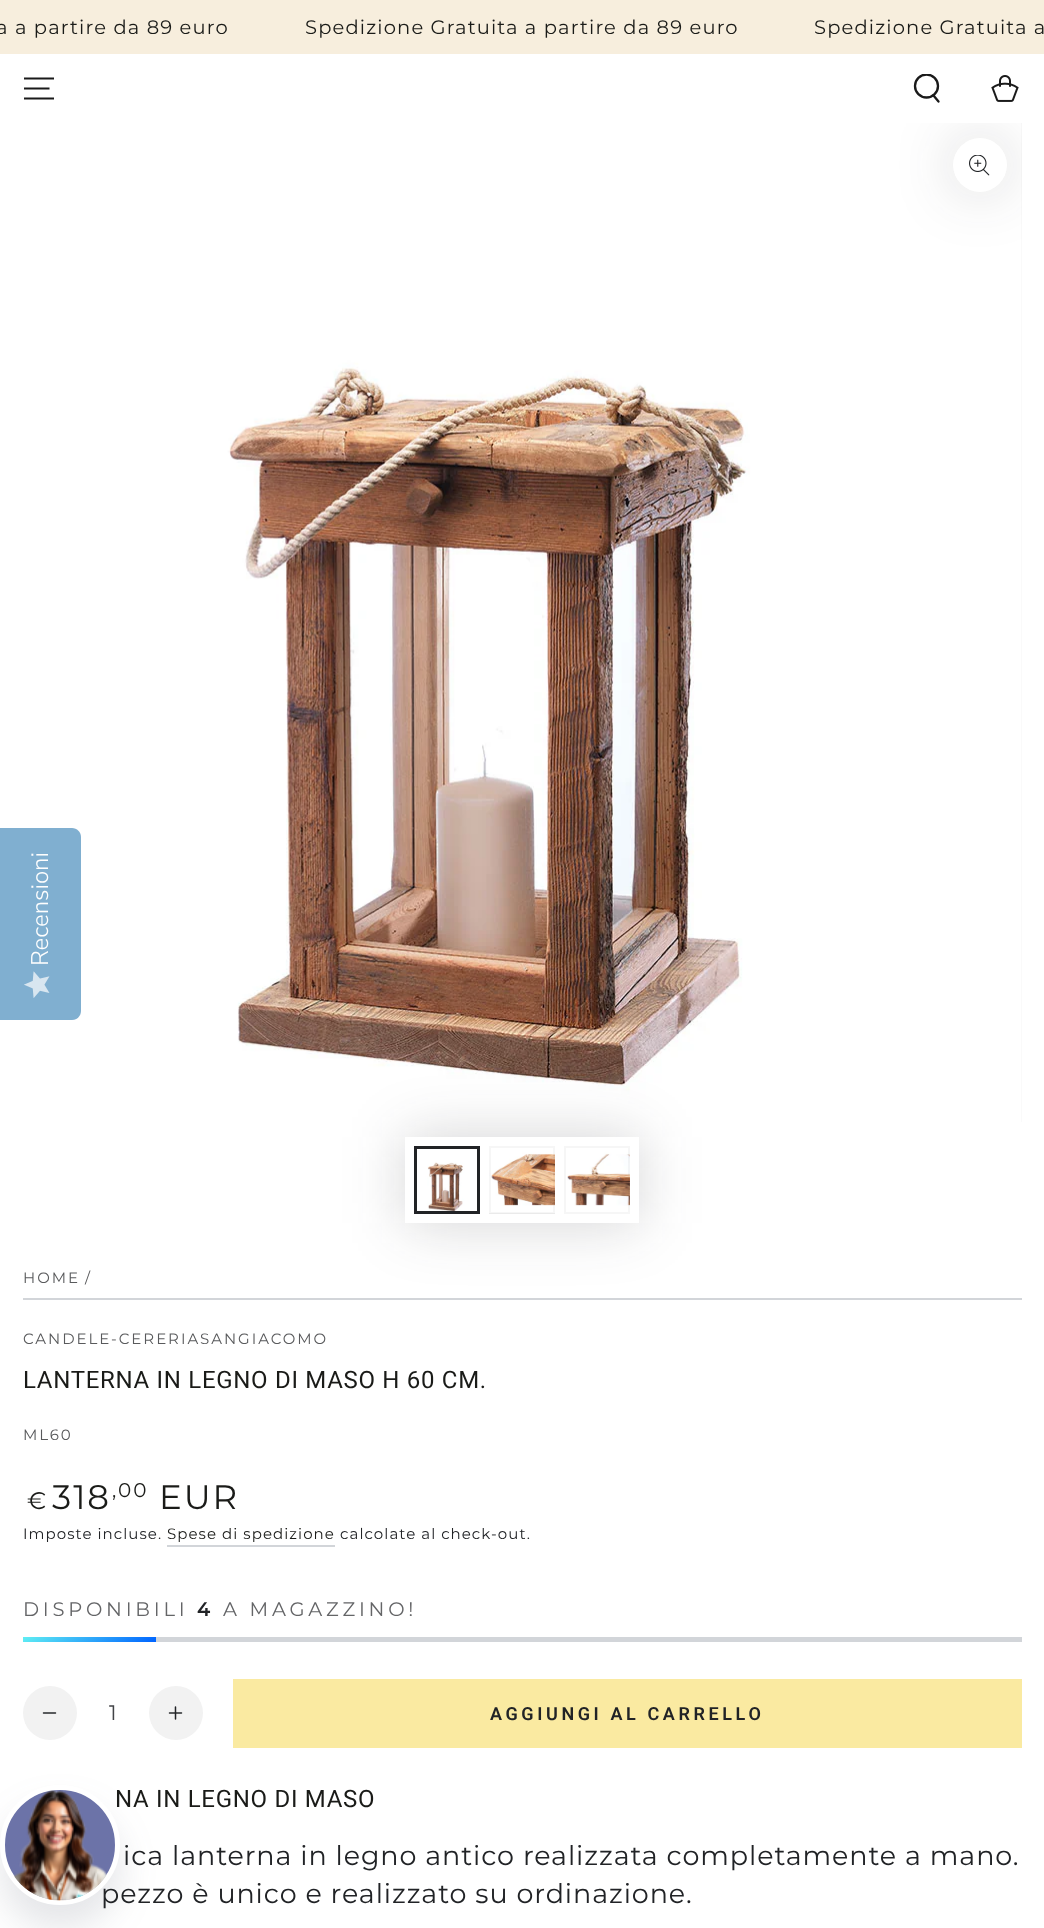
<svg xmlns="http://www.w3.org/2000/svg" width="1044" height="1928">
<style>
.a{font:19.5px Montserrat;letter-spacing:1.15px;fill:#1a1b18}
.b{font:15px Montserrat;letter-spacing:1.95px;fill:#595a5c}
.c{font:24px Roboto;letter-spacing:0.7px;fill:#1a1b18}
.d{font:24px Montserrat;letter-spacing:1.95px;fill:#1a1b18}
.e{font:34px Montserrat;letter-spacing:1.95px;fill:#1a1b18}
.f{font:20px Montserrat;letter-spacing:1.95px;fill:#1a1b18}
.g{font:15px Montserrat;letter-spacing:1.05px;fill:#212326}
.h{font:15px Montserrat;letter-spacing:1.05px;fill:#1a1b18}
.i{font:19.5px Montserrat;letter-spacing:3.75px;fill:#646567}
.j{font:600 19.5px Montserrat;letter-spacing:3.75px;fill:#212326}
.k{font:21px Montserrat;fill:#424447}
.l{font:600 18px Roboto;letter-spacing:3.6px;fill:#212326}
.m{font:27px Montserrat;letter-spacing:0.9px;fill:#212326}
.n{font:300 24px Nunito Sans;fill:#fefefe}
</style>
<defs>
<clipPath id="clip1"><path d="M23 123h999v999H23z"/></clipPath>
<clipPath id="clip2"><path d="M912 74h30v30H912z"/></clipPath>
<linearGradient id="g1" gradientUnits="userSpaceOnUse" x1="112" y1="1672" x2="66" y2="1606"><stop offset="0" stop-color="#0064ff"/><stop offset="1" stop-color="#61f0f3"/></linearGradient>
</defs>
<rect width="100%" height="100%" fill="#fff"/>
<path fill="#f3f3f3" d="M1021 123h1v999H1021z"/>
<image href="3.png" x="23" y="123" width="999" height="999"/>
<g clip-path="url(#clip1)">
<rect fill="#21232633" filter="blur(30px)" x="953" y="138" width="54" height="54" rx="27"/>
</g>
<path fill="#f7eedd" d="M0 0h1044v54H0z"/>
<path fill="none" stroke="#1a1a1a" stroke-width="2.1" d="M24 98.5h30m-30-10h25.5m-25.5-10h30"/>
<g clip-path="url(#clip2)">
<circle fill="none" stroke="#1a1a1a" stroke-width="2.3" cx="926.5" cy="86" r="11.5"/>
</g>
<path fill="none" stroke="#1a1a1a" stroke-width="2.3" stroke-linecap="round" d="M933.5 95.5l5 6"/>
<image href="1.png" x="991" y="75" width="28" height="27"/>
<circle fill="#fff" cx="980" cy="165" r="27"/>
<image href="2.png" x="969" y="155" width="21" height="21"/>
<path fill="#d2d5d9" d="M23 1298h999v2H23z"/>
<path fill="#21232633" filter="blur(30px)" d="M405 1137h234v86H405z"/>
<path fill="#fff" d="M405 1137h234v86H405z"/>
<image href="4.png" x="417" y="1149" width="60" height="62"/>
<path fill="none" stroke="#212326" stroke-width="3" d="M415.5 1147.5h63v65H415.5z"/>
<path fill="#f3f3f3" d="M489 1213h66v1H489z"/>
<image href="5.png" x="489" y="1146" width="66" height="67"/>
<path fill="none" stroke="#2123260a" stroke-width="2" d="M490 1147h64v66H490z"/>
<image href="6.png" x="564" y="1146" width="66" height="68"/>
<path fill="none" stroke="#2123260a" stroke-width="2" d="M565 1147h64v66H565z"/>
<path fill="#d2d5d9" d="M167 1545h168v2H167z"/>
<path fill="#d2d5d9" d="M156 1637h866v5H156z"/>
<path fill="url(#g1)" d="M23 1637h133v5H23z"/>
<circle fill="#f2f2f2" cx="50" cy="1713" r="27"/>
<image href="7.png" x="42" y="1712" width="15" height="2"/>
<circle fill="#f2f2f2" cx="176" cy="1713" r="27"/>
<image href="8.png" x="168" y="1706" width="15" height="14"/>
<path fill="#faeaa1" d="M233 1679h789v69H233z"/>
<path fill="#80afd0" d="M0 1020v-192h72c5 0 9 4 9 9v174c0 5-4 9-9 9z"/>
<image href="9.png" x="24" y="971" width="26" height="27"/>
<rect fill="#545f6f29" filter="blur(18px)" y="1809" width="120" height="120" rx="60"/>
<text class="a" x="-4" y="34">a a partire da 89 euro</text>
<text class="a" x="305" y="34">Spedizione Gratuita a partire da 89 euro</text>
<text class="a" x="814" y="34">Spedizione Gratuita a</text>
<text class="b" x="23" y="1283">HOME</text>
<text class="b" x="85" y="1283">/</text>
<text class="b" x="23" y="1344">CANDELE-CERERIASANGIACOMO</text>
<text class="c" x="23" y="1388">LANTERNA IN LEGNO DI MASO H 60 CM.</text>
<text class="b" x="23" y="1440">ML60</text>
<text class="d" x="27" y="1509">€</text>
<text class="e" x="52" y="1509">318</text>
<text class="f" x="112" y="1497">,00</text>
<text class="e" x="159" y="1509">EUR</text>
<text class="g" x="23" y="1539">Imposte incluse.</text>
<text class="h" x="167" y="1539">Spese di spedizione</text>
<text class="g" x="340" y="1539">calcolate al check-out.</text>
<text class="i" x="23" y="1616">DISPONIBILI</text>
<text class="j" x="197" y="1616">4</text>
<text class="i" x="223" y="1616">A MAGAZZINO!</text>
<text class="k" x="109" y="1720">1</text>
<text class="l" x="490" y="1720">AGGIUNGI AL CARRELLO</text>
<text class="c" x="115" y="1807">NA IN LEGNO DI MASO</text>
<text class="m" x="123" y="1865">ica lanterna in legno antico realizzata completamente a mano.</text>
<text class="m" x="101" y="1903">pezzo è unico e realizzato su ordinazione.</text>
<text class="n" x="48" y="966" transform="rotate(-90 48 966)">Recensioni</text>
<circle fill="#6c73a8" stroke="#fff" stroke-width="5" cx="60" cy="1845" r="57.5"/>
<image href="10.png" x="13" y="1790" width="94" height="111"/>
</svg>
